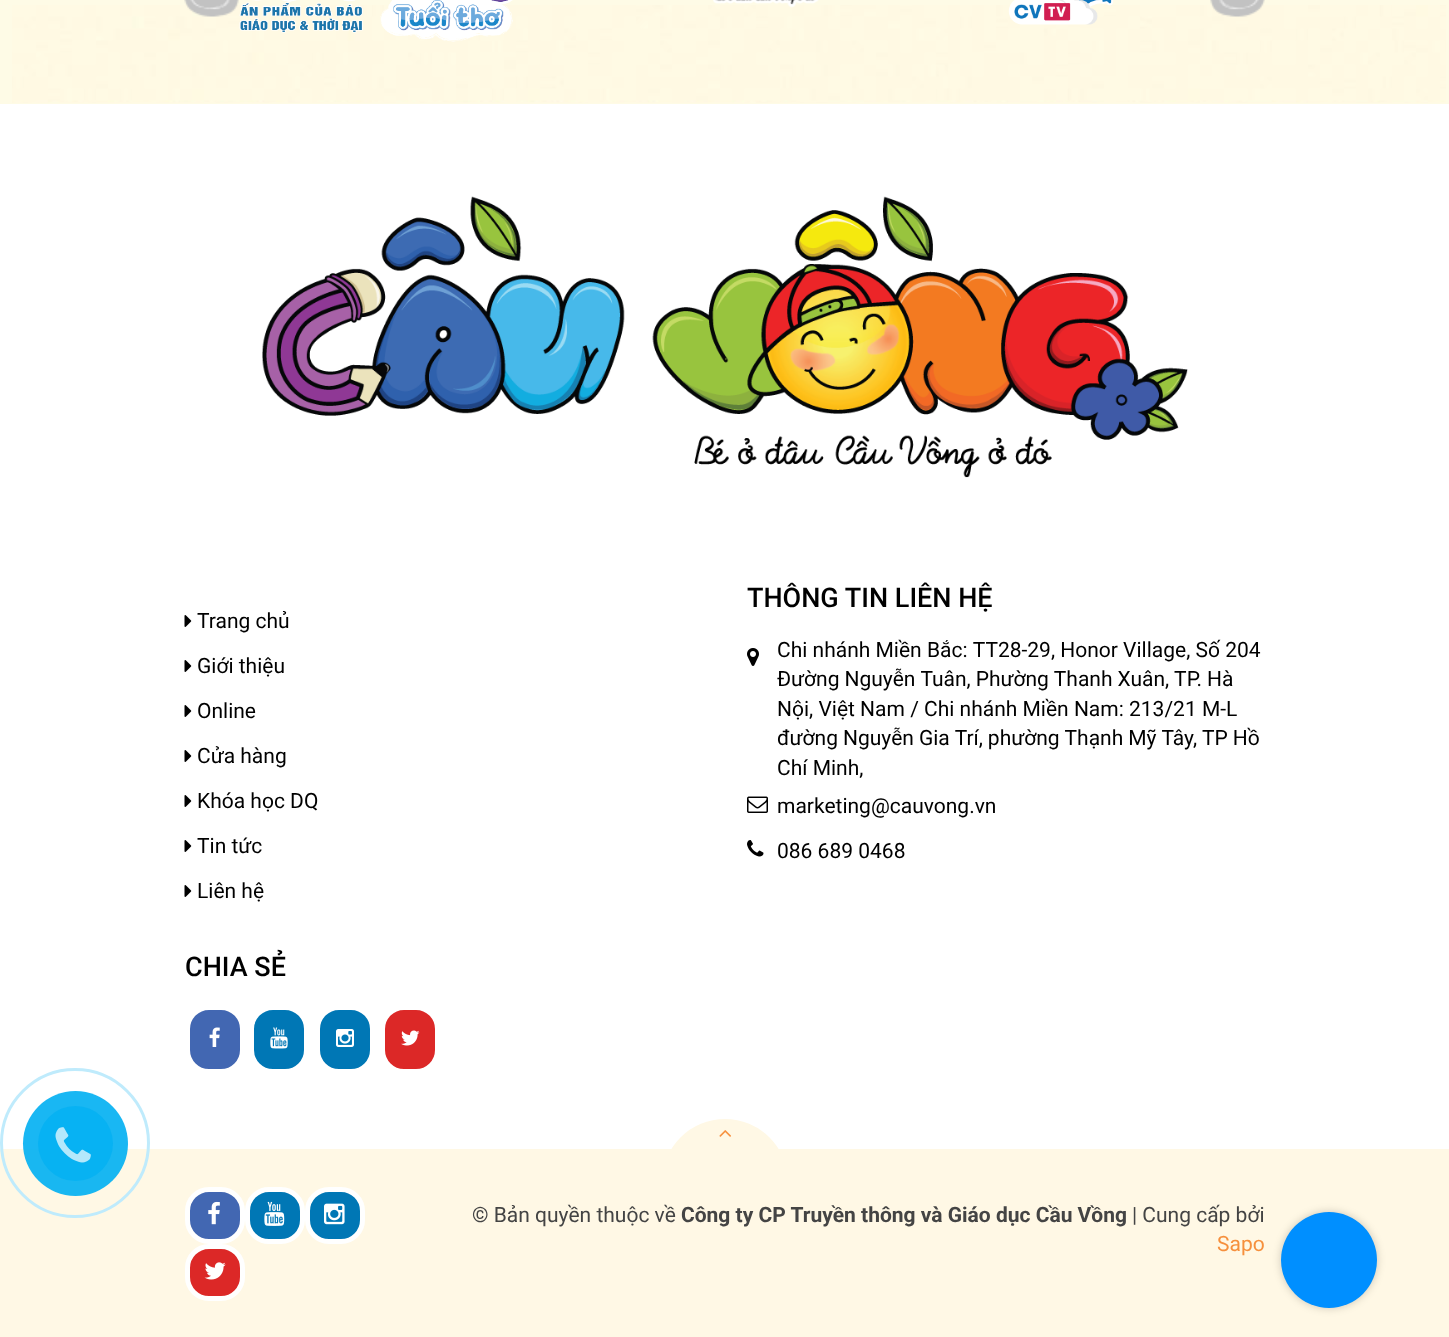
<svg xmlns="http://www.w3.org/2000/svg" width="1449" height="1337">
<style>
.a{font:21px Roboto;fill:#000}
.b{font:500 27px Roboto;fill:#000}
.c{font:21px Roboto;fill:#444}
.d{font:bold 21px Roboto;fill:#444}
.e{font:21px Roboto;fill:#f6903d}
</style>
<rect width="100%" height="100%" fill="#fff"/>
<path fill="#fefbe6" d="M0 0h1449v104H0z"/>
<image href="1.png" x="12" y="5" width="1434" height="98"/>
<image href="2.png" x="184" y="0" width="55" height="17"/>
<image href="3.png" x="239" y="0" width="274" height="42"/>
<image href="4.png" x="713" y="0" width="106" height="8"/>
<image href="5.png" x="1008" y="0" width="106" height="25"/>
<image href="6.png" x="1210" y="0" width="55" height="17"/>
<path fill="#fff8e5" d="M0 1149h1449v188H0z"/>
<circle fill="none" stroke="#bfebfc" stroke-width="3" cx="75" cy="1143" r="73.5"/>
<circle fill="#00aff2e6" cx="75.5" cy="1143.5" r="52.5"/>
<circle fill="#00aff2b3" cx="75.5" cy="1143.5" r="37.5"/>
<image href="7.png" x="55" y="1127" width="36" height="36"/>
<image href="8.png" x="262" y="196" width="926" height="282"/>
<image href="9.png" x="184" y="615" width="8" height="12"/>
<image href="9.png" x="184" y="660" width="8" height="12"/>
<image href="9.png" x="184" y="705" width="8" height="12"/>
<image href="9.png" x="184" y="750" width="8" height="12"/>
<image href="9.png" x="184" y="795" width="8" height="12"/>
<image href="9.png" x="184" y="840" width="8" height="12"/>
<image href="9.png" x="184" y="885" width="8" height="12"/>
<image href="10.png" x="747" y="648" width="12" height="18"/>
<image href="11.png" x="747" y="796" width="21" height="17"/>
<image href="12.png" x="747" y="840" width="17" height="17"/>
<rect fill="#4267b2" stroke="#fff" stroke-width="5" x="187.5" y="1007.5" width="55" height="64" rx="21.5"/>
<image href="13.png" x="209" y="1027" width="11" height="20"/>
<rect fill="#0077b5" stroke="#fff" stroke-width="5" x="251.5" y="1007.5" width="55" height="64" rx="21.5"/>
<image href="14.png" x="270" y="1027" width="18" height="22"/>
<rect fill="#0077b5" stroke="#fff" stroke-width="5" x="317.5" y="1007.5" width="55" height="64" rx="21.5"/>
<image href="15.png" x="336" y="1029" width="18" height="18"/>
<rect fill="#dc2827" stroke="#fff" stroke-width="5" x="382.5" y="1007.5" width="55" height="64" rx="21.5"/>
<image href="16.png" x="401" y="1030" width="19" height="16"/>
<circle fill="#fff8e5" cx="725" cy="1182" r="63"/>
<image href="17.png" x="719" y="1130" width="12" height="7"/>
<rect fill="#4267b2" stroke="#fff" stroke-width="5" x="187.5" y="1189.5" width="55" height="52" rx="21.5"/>
<image href="18.png" x="208" y="1201" width="12" height="24"/>
<rect fill="#0077b5" stroke="#fff" stroke-width="5" x="247.5" y="1189.5" width="55" height="52" rx="21.5"/>
<image href="19.png" x="264" y="1201" width="21" height="25"/>
<rect fill="#0077b5" stroke="#fff" stroke-width="5" x="307.5" y="1189.5" width="55" height="52" rx="21.5"/>
<image href="20.png" x="324" y="1203" width="21" height="22"/>
<rect fill="#dc2827" stroke="#fff" stroke-width="5" x="187.5" y="1246.5" width="55" height="52" rx="21.5"/>
<image href="21.png" x="204" y="1262" width="22" height="18"/>
<rect fill="#00000033" filter="blur(4px)" x="1281" y="1212" width="96" height="96" rx="48"/>
<circle fill="#008fff" cx="1329" cy="1260" r="48"/>
<text class="a" x="197" y="628">Trang chủ</text>
<text class="a" x="197" y="673">Giới thiệu</text>
<text class="a" x="197" y="718">Online</text>
<text class="a" x="197" y="763">Cửa hàng</text>
<text class="a" x="197" y="808">Khóa học DQ</text>
<text class="a" x="197" y="853">Tin tức</text>
<text class="a" x="197" y="898">Liên hệ</text>
<text class="b" x="747" y="607">THÔNG TIN LIÊN HỆ</text>
<text class="a" x="777" y="657">Chi nhánh Miền Bắc: TT28-29, Honor Village, Số 204</text>
<text class="a" x="777" y="686" word-spacing="-0.25">Đường Nguyễn Tuân, Phường Thanh Xuân, TP. Hà</text>
<text class="a" x="777" y="716">Nội, Việt Nam / Chi nhánh Miền Nam: 213/21 M-L</text>
<text class="a" x="777" y="745" word-spacing="-0.25">đường Nguyễn Gia Trí, phường Thạnh Mỹ Tây, TP Hồ</text>
<text class="a" x="777" y="775">Chí Minh,</text>
<text class="a" x="777" y="813">marketing@cauvong.vn</text>
<text class="a" x="777" y="858">086 689 0468</text>
<text class="b" x="185" y="976">CHIA SẺ</text>
<text class="c" x="472" y="1222">© Bản quyền thuộc về</text>
<text class="d" x="681" y="1222">Công ty CP Truyền thông và Giáo dục Cầu Vồng</text>
<text class="c" x="1132" y="1222">| Cung cấp bởi</text>
<text class="e" x="1217" y="1251">Sapo</text>
</svg>
